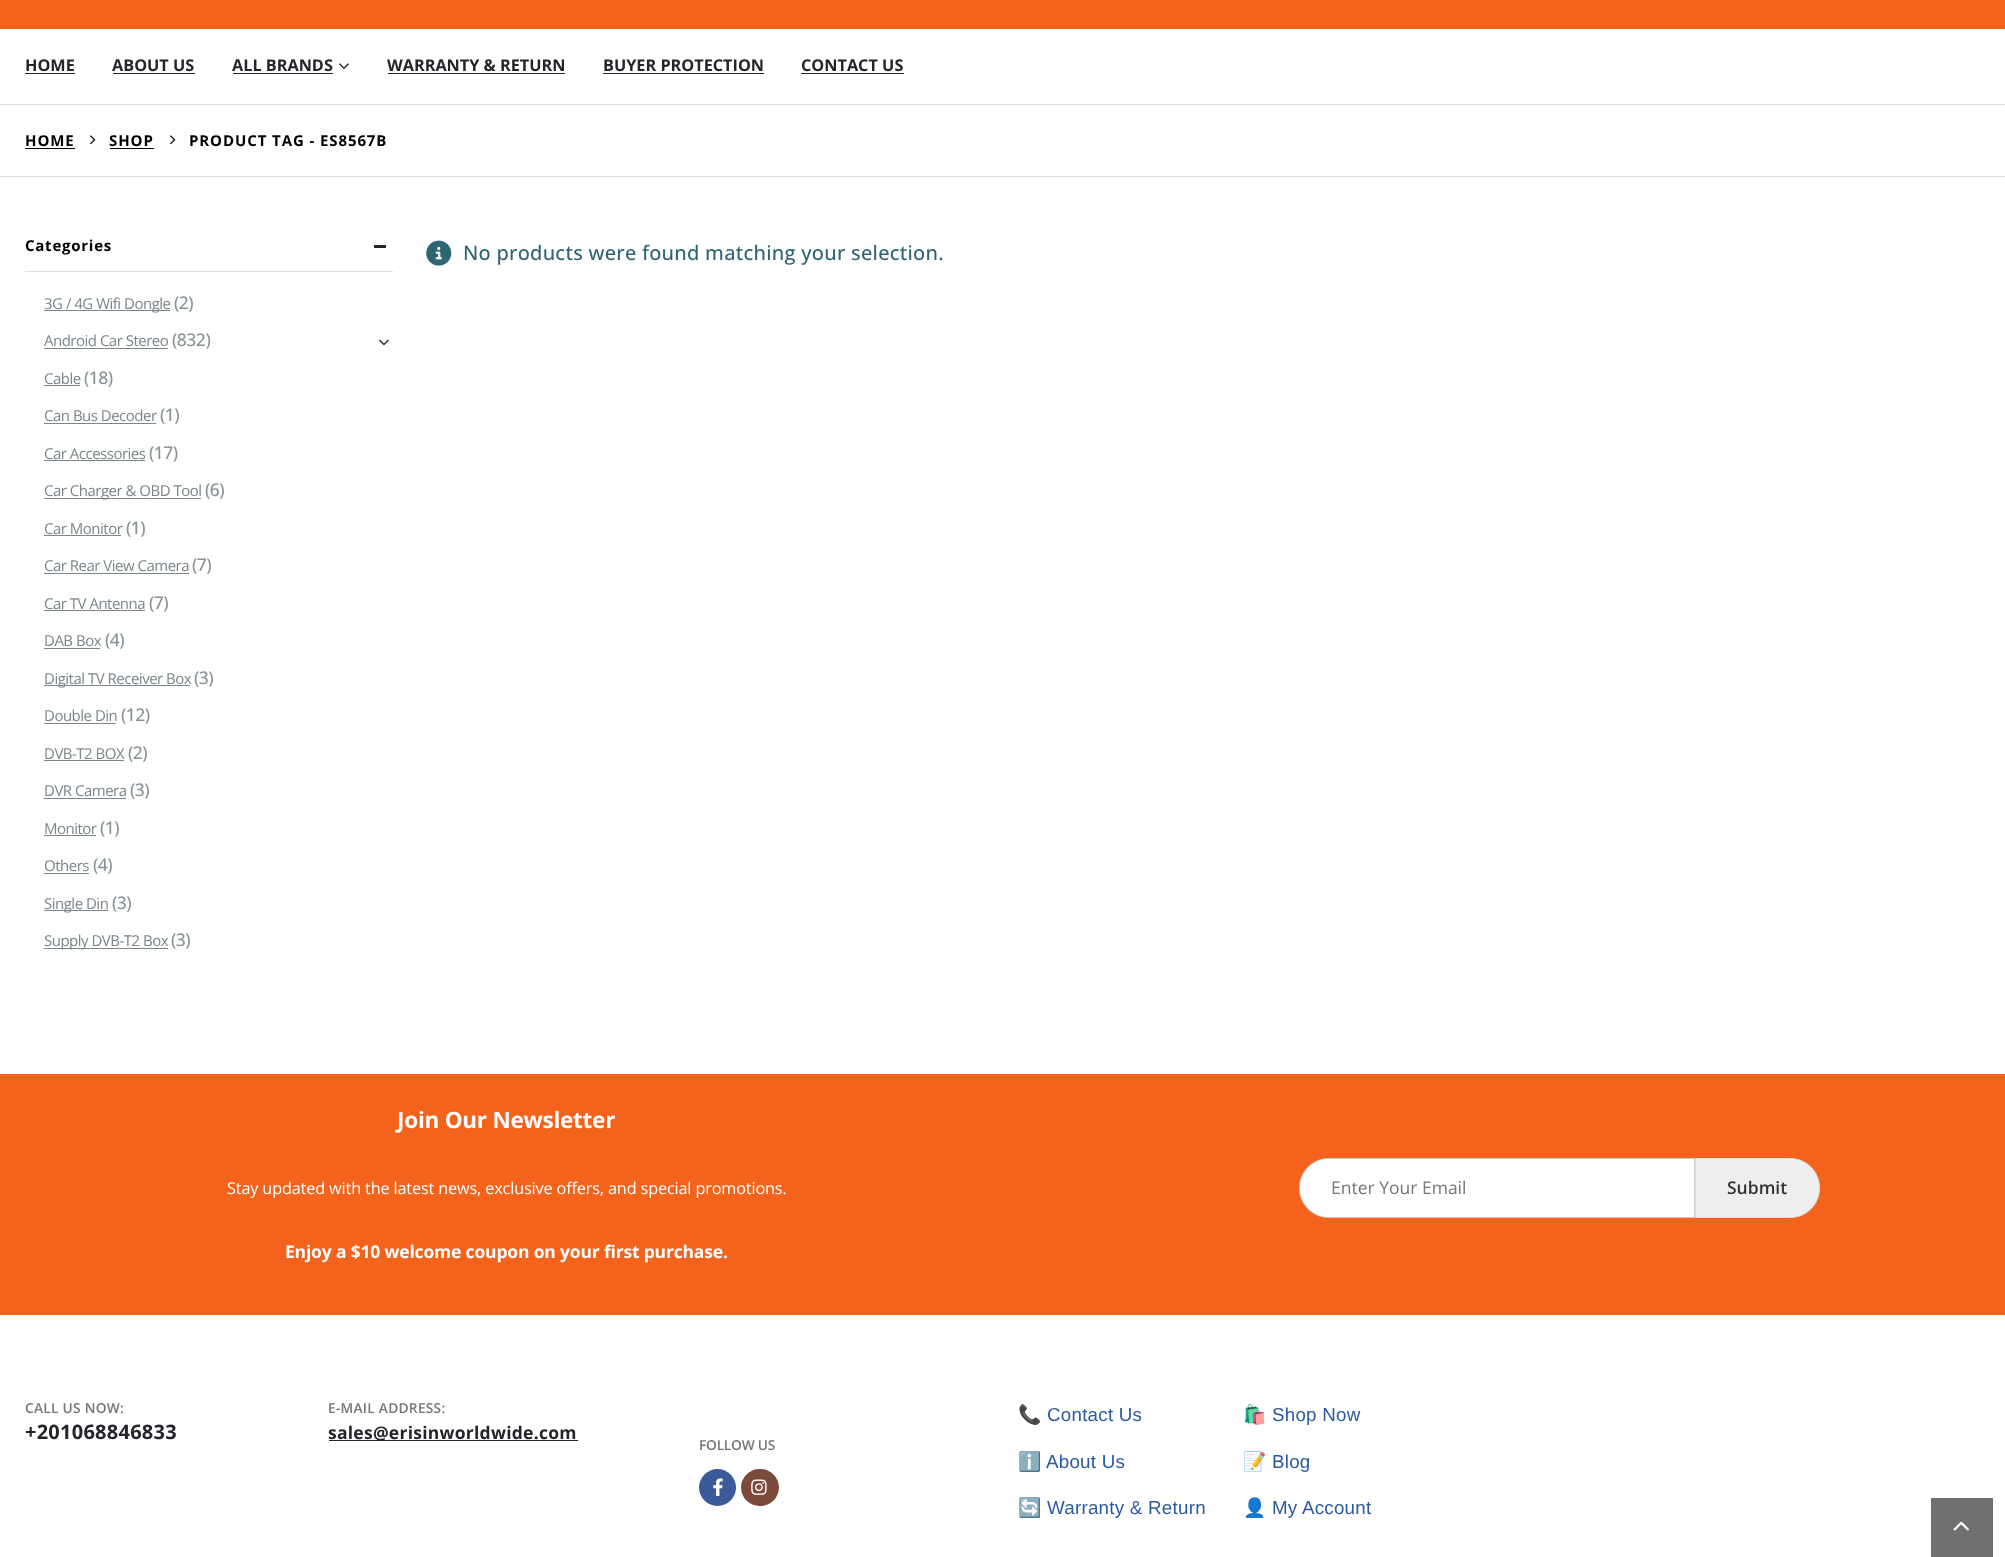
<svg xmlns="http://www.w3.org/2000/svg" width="2005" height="1557">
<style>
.a{font:bold 16.25px Open Sans;fill:#222529}
.b{font:bold 15px Open Sans;letter-spacing:0.9px;fill:#000}
.c{font:bold 15px Open Sans;letter-spacing:0.75px;fill:#000}
.d{font:15px Open Sans;letter-spacing:-0.5px;fill:#7b858a}
.e{font:500 17.5px Open Sans;letter-spacing:-0.5px;fill:#899296}
.f{font:500 20px Open Sans;letter-spacing:0.25px;fill:#2f6473}
.g{font:bold 22.5px Open Sans;letter-spacing:-0.25px;fill:#fff}
.h{font:16.25px Open Sans;letter-spacing:-0.15px;fill:#fff}
.i{font:bold 17.5px Open Sans;letter-spacing:-0.18px;fill:#fff}
.j{font:17.5px Open Sans;fill:#757575}
.k{font:600 17.5px Open Sans;fill:#333}
.l{font:600 13.75px Open Sans;letter-spacing:0.25px;fill:#757575}
.m{font:bold 20px Open Sans;letter-spacing:0.25px;fill:#222529}
.n{font:bold 17.5px Open Sans;letter-spacing:0.25px;fill:#222529}
.o{font:600 13.75px Open Sans;letter-spacing:-0.25px;fill:#757575}
.p{font:18.75px Noto Color Emoji;letter-spacing:0.25px;fill:#2c5aa0}
.q{font:18.75px Liberation Sans;letter-spacing:0.25px;fill:#2c5aa0}
</style>
<rect width="100%" height="100%" fill="#fff"/>
<path fill="#f4631b" d="M0 0h2005v29H0z"/>
<path fill="#222529" d="M25 73h50v1H25z"/>
<path fill="#222529" d="M113 73h82v1H113z"/>
<path fill="#222529" d="M233 73h100v1H233z"/>
<image href="1.png" x="339" y="63" width="10" height="7"/>
<path fill="#222529" d="M388 73h177v1H388z"/>
<path fill="#222529" d="M603 73h161v1H603z"/>
<path fill="#222529" d="M801 73h103v1H801z"/>
<path fill="#dfdfdf" d="M0 104h2005v1H0z"/>
<path fill="#dfdfdf" d="M0 176h2005v1H0z"/>
<path fill="#000" d="M25 148h50v1H25z"/>
<image href="2.png" x="90" y="135" width="6" height="10"/>
<path fill="#000" d="M110 148h44v1H110z"/>
<image href="2.png" x="170" y="135" width="6" height="10"/>
<path fill="#dfdfdf" d="M25 271h368v1H25z"/>
<path fill="#222529" d="M374 245h12v3H374z"/>
<path fill="#7b858a" d="M44 310h126v1H44z"/>
<path fill="#7b858a" d="M44 348h124v1H44z"/>
<image href="3.png" x="379" y="339" width="10" height="7"/>
<path fill="#7b858a" d="M44 385h36v1H44z"/>
<path fill="#7b858a" d="M44 423h112v1H44z"/>
<path fill="#7b858a" d="M44 460h101v1H44z"/>
<path fill="#7b858a" d="M44 498h157v1H44z"/>
<path fill="#7b858a" d="M44 535h77v1H44z"/>
<path fill="#7b858a" d="M44 573h145v1H44z"/>
<path fill="#7b858a" d="M44 610h101v1H44z"/>
<path fill="#7b858a" d="M44 648h56v1H44z"/>
<path fill="#7b858a" d="M44 685h146v1H44z"/>
<path fill="#7b858a" d="M44 723h72v1H44z"/>
<path fill="#7b858a" d="M44 760h80v1H44z"/>
<path fill="#7b858a" d="M44 798h82v1H44z"/>
<path fill="#7b858a" d="M44 835h52v1H44z"/>
<path fill="#7b858a" d="M44 873h45v1H44z"/>
<path fill="#7b858a" d="M44 910h64v1H44z"/>
<path fill="#7b858a" d="M44 948h124v1H44z"/>
<image href="4.png" x="426" y="240" width="26" height="26"/>
<path fill="#f4631b" d="M0 1074h2005v241H0z"/>
<path fill="#fff" stroke="#ccc" d="M1329 1158.5h365.5v59h-365.5c-16.5 0-29.5-13-29.5-29.5c0-16.5 13-29.5 29.5-29.5z"/>
<path fill="#eee" stroke="#ddd" d="M1695.5 1158.5h94.5c16.5 0 29.5 13 29.5 29.5c0 16.5-13 29.5-29.5 29.5h-94.5z"/>
<path fill="#222529" d="M329 1440h249v1H329z"/>
<circle fill="#3b5a9a" cx="717.5" cy="1487.5" r="18.5"/>
<image href="5.png" x="713" y="1478" width="10" height="18"/>
<rect fill="#7c4a3a" x="741" y="1469" width="38" height="37" rx="18.5"/>
<image href="6.png" x="751" y="1479" width="16" height="16"/>
<path fill="#707070" d="M1931 1498h62v59H1931z"/>
<image href="7.png" x="1953" y="1521" width="16" height="10"/>
<text class="a" x="25" y="71">HOME</text>
<text class="a" x="112" y="71">ABOUT US</text>
<text class="a" x="232" y="71">ALL BRANDS</text>
<text class="a" x="387" y="71">WARRANTY &amp; RETURN</text>
<text class="a" x="603" y="71">BUYER PROTECTION</text>
<text class="a" x="801" y="71">CONTACT US</text>
<text class="b" x="25" y="146">HOME</text>
<text class="b" x="109" y="146">SHOP</text>
<text class="b" x="189" y="146">PRODUCT TAG - ES8567B</text>
<text class="c" x="25" y="251">Categories</text>
<text class="d" x="44" y="309">3G / 4G Wifi Dongle</text>
<text class="e" x="174" y="309">(2)</text>
<text class="d" x="44" y="346">Android Car Stereo</text>
<text class="e" x="172" y="346">(832)</text>
<text class="d" x="44" y="384">Cable</text>
<text class="e" x="84" y="384">(18)</text>
<text class="d" x="44" y="421">Can Bus Decoder</text>
<text class="e" x="160" y="421">(1)</text>
<text class="d" x="44" y="459">Car Accessories</text>
<text class="e" x="149" y="459">(17)</text>
<text class="d" x="44" y="496">Car Charger &amp; OBD Tool</text>
<text class="e" x="205" y="496">(6)</text>
<text class="d" x="44" y="534">Car Monitor</text>
<text class="e" x="126" y="534">(1)</text>
<text class="d" x="44" y="571">Car Rear View Camera</text>
<text class="e" x="192" y="571">(7)</text>
<text class="d" x="44" y="609">Car TV Antenna</text>
<text class="e" x="149" y="609">(7)</text>
<text class="d" x="44" y="646">DAB Box</text>
<text class="e" x="105" y="646">(4)</text>
<text class="d" x="44" y="684">Digital TV Receiver Box</text>
<text class="e" x="194" y="684">(3)</text>
<text class="d" x="44" y="721">Double Din</text>
<text class="e" x="121" y="721">(12)</text>
<text class="d" x="44" y="759">DVB-T2 BOX</text>
<text class="e" x="128" y="759">(2)</text>
<text class="d" x="44" y="796">DVR Camera</text>
<text class="e" x="130" y="796">(3)</text>
<text class="d" x="44" y="834">Monitor</text>
<text class="e" x="100" y="834">(1)</text>
<text class="d" x="44" y="871">Others</text>
<text class="e" x="93" y="871">(4)</text>
<text class="d" x="44" y="909">Single Din</text>
<text class="e" x="112" y="909">(3)</text>
<text class="d" x="44" y="946">Supply DVB-T2 Box</text>
<text class="e" x="171" y="946">(3)</text>
<text class="f" x="463" y="260">No products were found matching your selection.</text>
<text class="g" x="397" y="1128">Join Our Newsletter</text>
<text class="h" x="227" y="1194">Stay updated with the latest news, exclusive offers, and special promotions.</text>
<text class="i" x="285" y="1258">Enjoy a $10 welcome coupon on your first purchase.</text>
<text class="j" x="1331" y="1194">Enter Your Email</text>
<text class="k" x="1727" y="1194">Submit</text>
<text class="l" x="25" y="1413">CALL US NOW:</text>
<text class="m" x="25" y="1439">+201068846833</text>
<text class="l" x="328" y="1413">E-MAIL ADDRESS:</text>
<text class="n" x="328" y="1439">sales@erisinworldwide.com</text>
<text class="o" x="699" y="1450">FOLLOW US</text>
<text class="p" x="1018" y="1421">📞</text>
<text class="q" x="1047" y="1421">Contact Us</text>
<text class="p" x="1018" y="1468">ℹ️</text>
<text class="q" x="1046" y="1468">About Us</text>
<text class="p" x="1018" y="1514">🔄</text>
<text class="q" x="1047" y="1514">Warranty &amp; Return</text>
<text class="p" x="1243" y="1421">🛍️</text>
<text class="q" x="1272" y="1421">Shop Now</text>
<text class="p" x="1243" y="1468">📝</text>
<text class="q" x="1272" y="1468">Blog</text>
<text class="p" x="1243" y="1514">👤</text>
<text class="q" x="1272" y="1514">My Account</text>
</svg>
